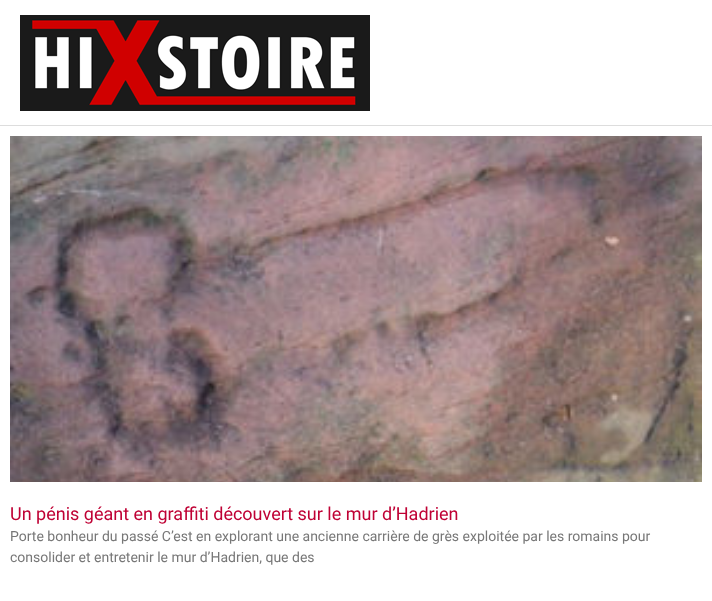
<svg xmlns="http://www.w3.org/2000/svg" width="712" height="601">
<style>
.a{font:18px Roboto;fill:#bf0134}
.b{font:14px Roboto;fill:#777}
</style>
<rect width="100%" height="100%" fill="#fff"/>
<path fill="#ddd" d="M0 125h712v1H0z"/>
<image href="1.png" x="20" y="15" width="350" height="96"/>
<image href="2.png" x="10" y="136" width="692" height="346"/>
<text class="a" x="10" y="520">Un pénis géant en graffiti découvert sur le mur d’Hadrien</text>
<text class="b" x="10" y="541">Porte bonheur du passé C’est en explorant une ancienne carrière de grès exploitée par les romains pour</text>
<text class="b" x="10" y="562">consolider et entretenir le mur d’Hadrien, que des</text>
</svg>
